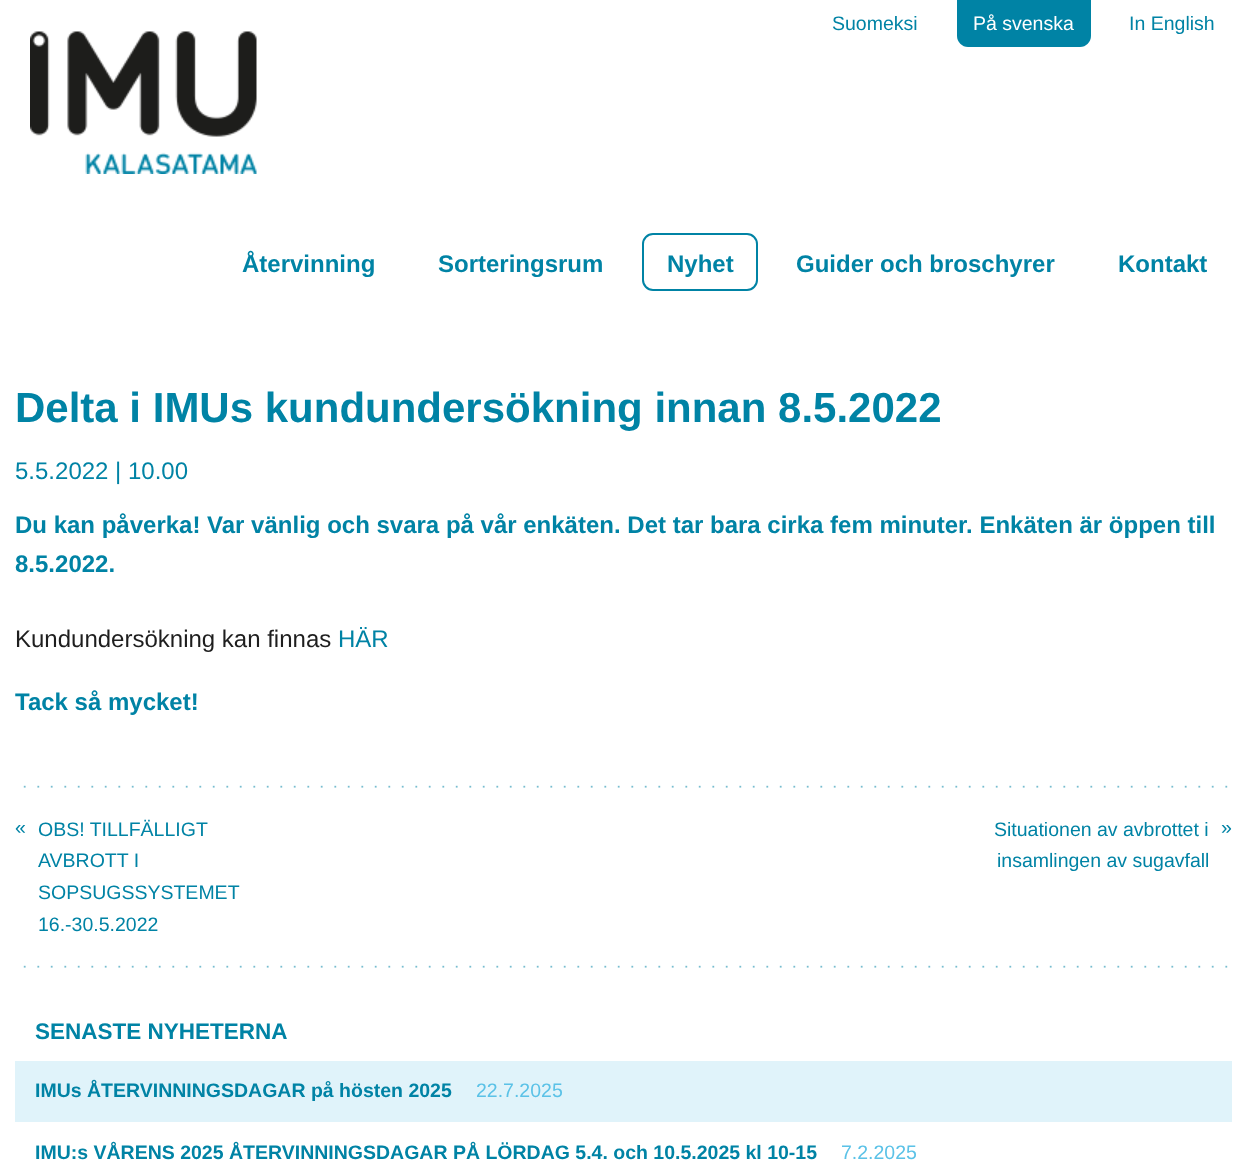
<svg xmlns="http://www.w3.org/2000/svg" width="1246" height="1169">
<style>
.a{font:19.5px Liberation Sans;fill:#0083a5}
.b{font:19.5px Liberation Sans;fill:#fff}
.c{font:bold 24px Liberation Sans;fill:#0083a5}
.d{font:bold 42px Liberation Sans;fill:#0083a5}
.e{font:24px Liberation Sans;fill:#0083a5}
.f{font:24px Liberation Sans;fill:#1e1e1e}
.g{font:bold 22.5px Liberation Sans;fill:#0083a5}
.h{font:bold 19.5px Liberation Sans;fill:#0083a5}
.i{font:19.5px Liberation Sans;fill:#5bc2e7}
</style>
<rect width="100%" height="100%" fill="#fff"/>
<path fill="#0083a5" d="M957 0h134v36c0 6-5 11-11 11h-112c-6 0-11-5-11-11z"/>
<image href="1.png" x="30" y="31" width="227" height="143"/>
<rect fill="none" stroke="#0083a5" stroke-width="2" x="643" y="234" width="114" height="56" rx="10"/>
<image href="2.png" x="23" y="785" width="1205" height="3"/>
<image href="3.png" x="23" y="965" width="1205" height="3"/>
<path fill="#e0f3fa" d="M15 1061h1217v61H15z"/>
<text class="a" x="832" y="30">Suomeksi</text>
<text class="b" x="973" y="30">På svenska</text>
<text class="a" x="1129" y="30">In English</text>
<text class="c" x="242" y="272">Återvinning</text>
<text class="c" x="438" y="272">Sorteringsrum</text>
<text class="c" x="667" y="272">Nyhet</text>
<text class="c" x="796" y="272">Guider och broschyrer</text>
<text class="c" x="1118" y="272">Kontakt</text>
<text class="d" x="15" y="422">Delta i IMUs kundundersökning innan 8.5.2022</text>
<text class="e" x="15" y="479">5.5.2022 | 10.00</text>
<text class="c" x="15" y="533">Du kan påverka! Var vänlig och svara på vår enkäten. Det tar bara cirka fem minuter. Enkäten är öppen till</text>
<text class="c" x="15" y="572">8.5.2022.</text>
<text class="f" x="15" y="647">Kundundersökning kan finnas</text>
<text class="e" x="338" y="647">HÄR</text>
<text class="c" x="15" y="710">Tack så mycket!</text>
<text class="a" x="15" y="834">«</text>
<text class="a" x="38" y="836">OBS! TILLFÄLLIGT</text>
<text class="a" x="38" y="867">AVBROTT I</text>
<text class="a" x="38" y="899">SOPSUGSSYSTEMET</text>
<text class="a" x="38" y="931">16.-30.5.2022</text>
<text class="a" x="994" y="836">Situationen av avbrottet i</text>
<text class="a" x="1221" y="834">»</text>
<text class="a" x="997" y="867">insamlingen av sugavfall</text>
<text class="g" x="35" y="1039">SENASTE NYHETERNA</text>
<text class="h" x="35" y="1097">IMUs ÅTERVINNINGSDAGAR på hösten 2025</text>
<text class="i" x="476" y="1097">22.7.2025</text>
<text class="h" x="35" y="1159">IMU:s VÅRENS 2025 ÅTERVINNINGSDAGAR PÅ LÖRDAG 5.4. och 10.5.2025 kl 10-15</text>
<text class="i" x="841" y="1159">7.2.2025</text>
</svg>
